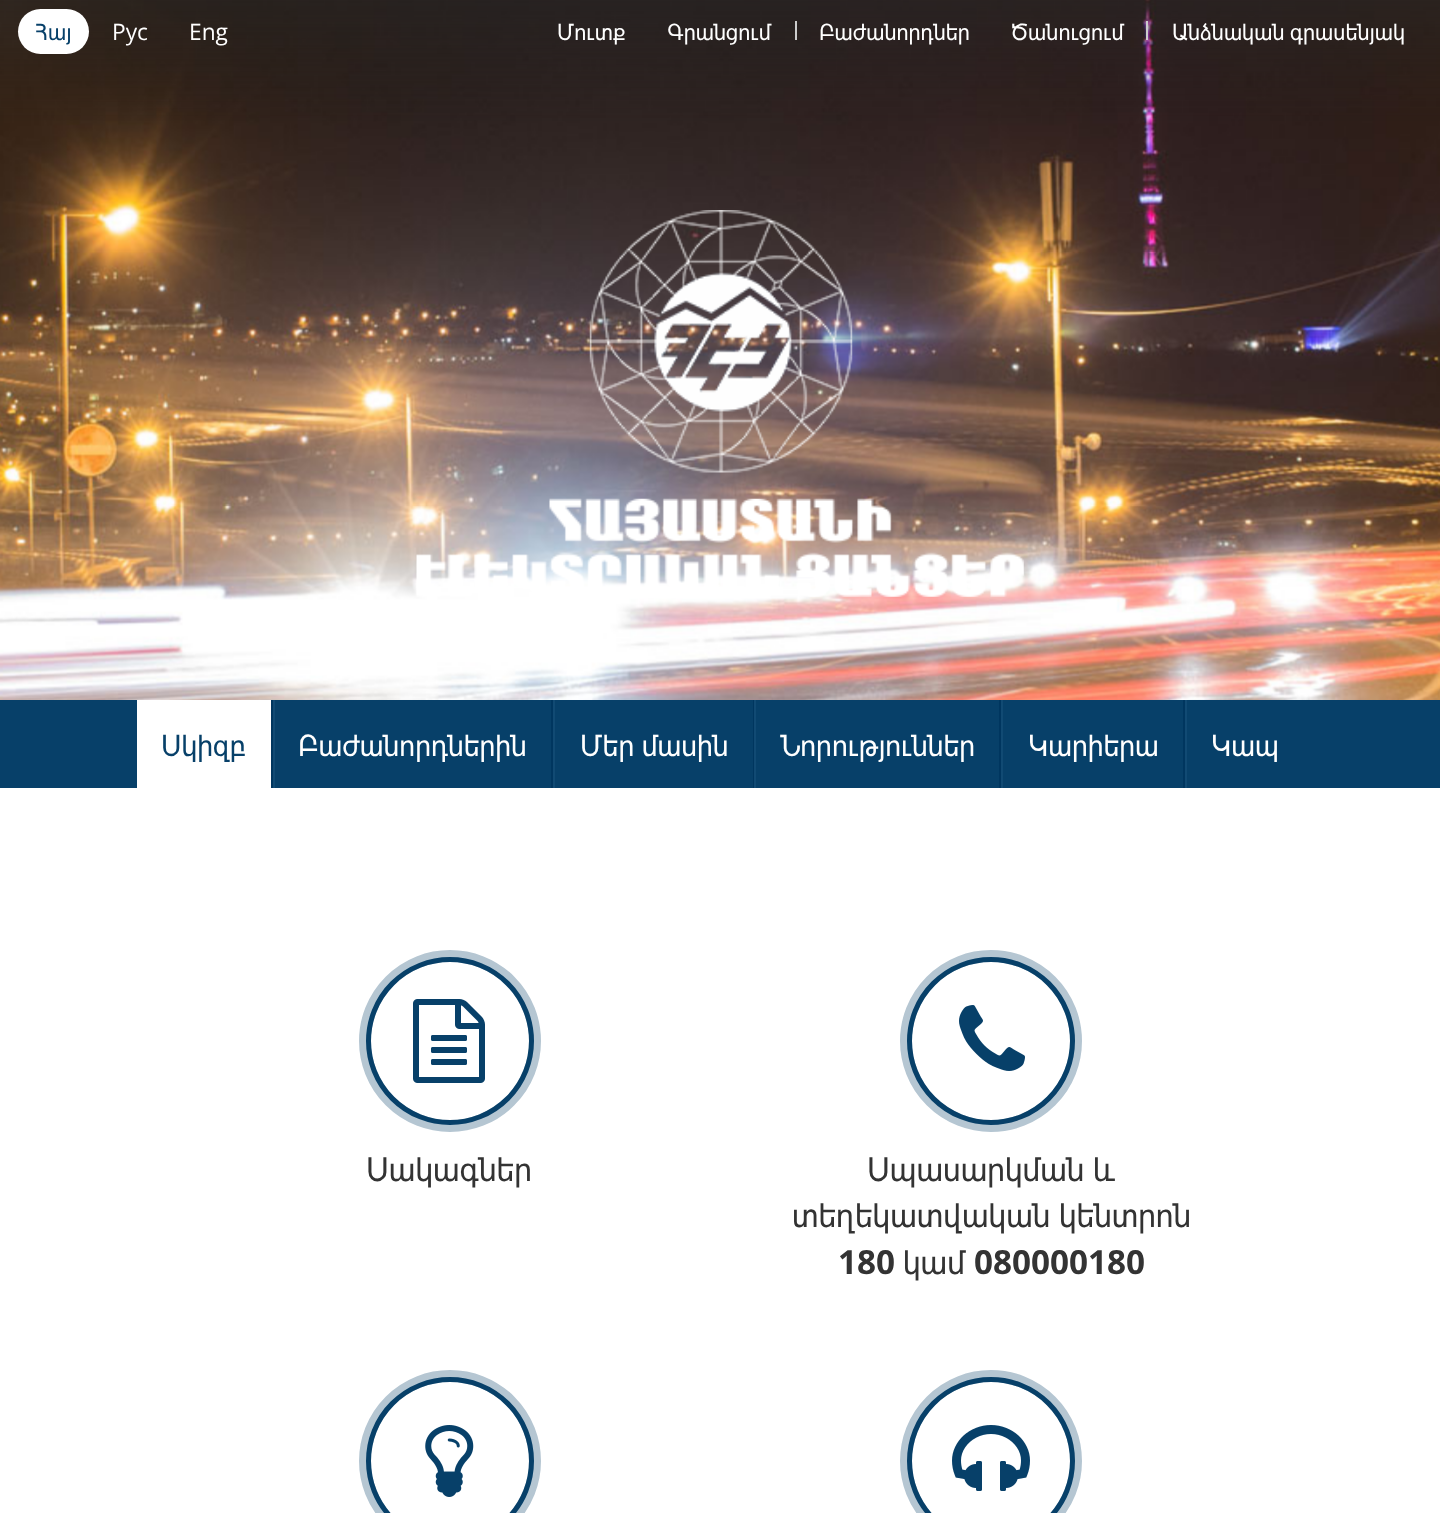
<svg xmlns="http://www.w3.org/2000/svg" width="1440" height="1513">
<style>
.a{font:22.75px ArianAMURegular;fill:#074069}
.b{font:22.75px Open Sans;fill:#fff}
.c{font:22.75px ArianAMURegular;fill:#fff}
.d{font:29.75px ArianAMURegular;fill:#074069}
.e{font:29.75px ArianAMURegular;fill:#fff}
.f{font:33.25px ArianAMURegular;fill:#333}
.g{font:bold 33.25px Open Sans;fill:#333}
</style>
<rect width="100%" height="100%" fill="#fff"/>
<image href="1.png" x="0" y="0" width="1440" height="700"/>
<image href="2.png" x="0" y="0" width="1440" height="121"/>
<image href="3.png" x="589" y="210" width="264" height="263"/>
<image href="4.png" x="416" y="498" width="608" height="99"/>
<rect fill="#fff" x="18" y="9" width="71" height="45" rx="22.5"/>
<path fill="#ccc" d="M795 21h2v19H795z"/>
<path fill="#ccc" d="M1146 21h2v19H1146z"/>
<path fill="#074069" d="M0 700h1440v88H0z"/>
<path fill="#00365f" d="M271 700h2v88H271z"/>
<path fill="#fff" d="M137 700h134v88H137z"/>
<path fill="#00365f" d="M551 700h2v88H551z"/>
<path fill="#114a73" d="M273 700h2v88H273z"/>
<path fill="#00365f" d="M753 700h1v88H753z"/>
<path fill="#114a73" d="M553 700h2v88H553z"/>
<path fill="#00365f" d="M999 700h2v88H999z"/>
<path fill="#114a73" d="M754 700h2v88H754z"/>
<path fill="#00365f" d="M1183 700h2v88H1183z"/>
<path fill="#114a73" d="M1001 700h2v88H1001z"/>
<path fill="#114a73" d="M1185 700h2v88H1185z"/>
<circle fill="none" stroke="#b5c6d2" stroke-width="12" cx="450" cy="1041" r="85"/>
<image href="5.png" x="413" y="999" width="72" height="84"/>
<circle fill="none" stroke="#074069" stroke-width="5" cx="450" cy="1041" r="81.5"/>
<circle fill="none" stroke="#b5c6d2" stroke-width="12" cx="991" cy="1041" r="85"/>
<image href="6.png" x="959" y="1005" width="66" height="66"/>
<circle fill="none" stroke="#074069" stroke-width="5" cx="991" cy="1041" r="81.5"/>
<circle fill="none" stroke="#b5c6d2" stroke-width="12" cx="450" cy="1461" r="85"/>
<image href="7.png" x="425" y="1425" width="49" height="72"/>
<circle fill="none" stroke="#074069" stroke-width="5" cx="450" cy="1461" r="81.5"/>
<circle fill="none" stroke="#b5c6d2" stroke-width="12" cx="991" cy="1461" r="85"/>
<image href="8.png" x="952" y="1425" width="78" height="66"/>
<circle fill="none" stroke="#074069" stroke-width="5" cx="991" cy="1461" r="81.5"/>
<text class="a" x="35" y="40">Հայ</text>
<text class="b" x="112" y="40">Рус</text>
<text class="b" x="189" y="40">Eng</text>
<text class="c" x="557" y="40">Մուտք</text>
<text class="c" x="667" y="40">Գրանցում</text>
<text class="c" x="819" y="40">Բաժանորդներ</text>
<text class="c" x="1011" y="40">Ծանուցում</text>
<text class="c" x="1172" y="40" word-spacing="-1">Անձնական գրասենյակ</text>
<text class="d" x="161" y="756">Սկիզբ</text>
<text class="e" x="298" y="756">Բաժանորդներին</text>
<text class="e" x="580" y="756" word-spacing="-1">Մեր մասին</text>
<text class="e" x="781" y="756">Նորություններ</text>
<text class="e" x="1028" y="756">Կարիերա</text>
<text class="e" x="1211" y="756">Կապ</text>
<text class="f" x="366" y="1181">Սակագներ</text>
<text class="f" x="867" y="1181" word-spacing="-1">Սպասարկման և</text>
<text class="f" x="792" y="1227" word-spacing="-1">տեղեկատվական կենտրոն</text>
<text class="g" x="838" y="1274">180</text>
<text class="f" x="903" y="1274">կամ</text>
<text class="g" x="974" y="1274">080000180</text>
</svg>
